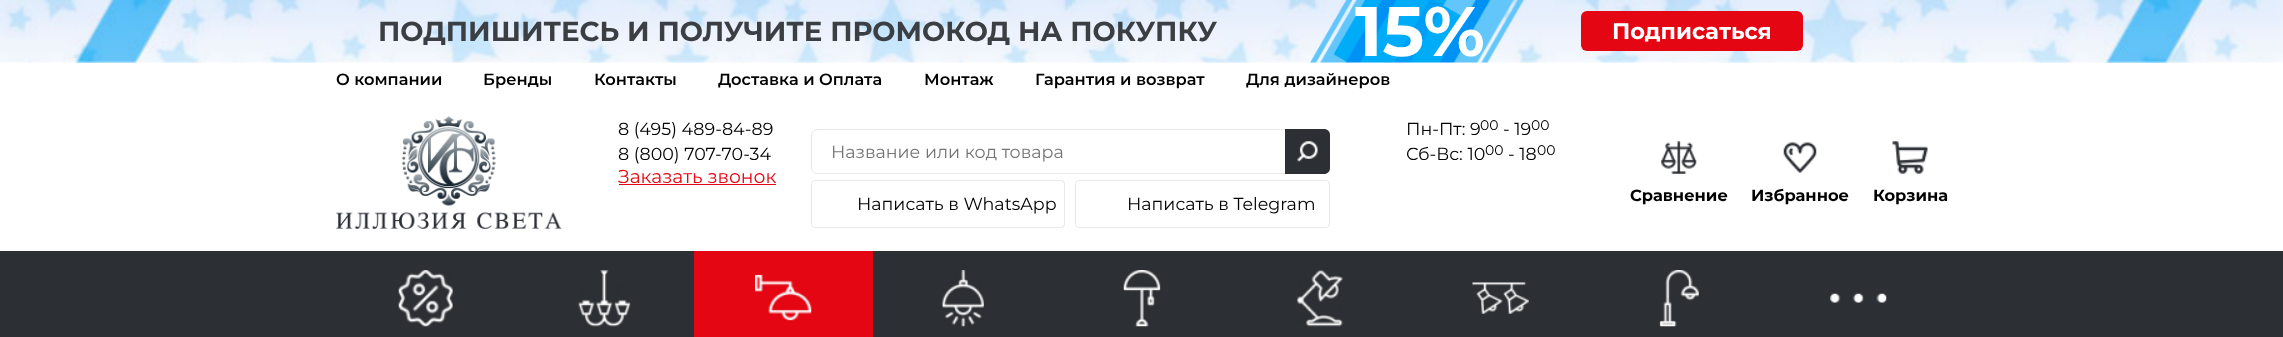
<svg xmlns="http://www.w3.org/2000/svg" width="2283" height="337">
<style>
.a{font:bold 27.5px Montserrat;fill:#3b3e43}
.b{font:bold 70px Montserrat;fill:#fff}
.c{font:bold 22.5px Montserrat;fill:#fff}
.d{font:600 16.25px Montserrat;fill:#000}
.e{font:17.5px Montserrat;fill:#000}
.f{font:18.75px Montserrat;fill:#e40613}
.g{font:17.5px Montserrat;fill:#757575}
.h{font:14px Montserrat;fill:#000}
.i{font:bold 16.25px Montserrat;fill:#000}
</style>
<rect width="100%" height="100%" fill="#fff"/>
<image href="1.png" x="0" y="0" width="2283" height="63"/>
<image href="2.png" x="1310" y="0" width="215" height="63"/>
<rect fill="#e40613" x="1581" y="11" width="222" height="40" rx="6"/>
<image href="3.png" x="336" y="116" width="226" height="113"/>
<path fill="#e40613" d="M619 184h157v1H619z"/>
<rect fill="none" stroke="#e8e8e8" x="811.5" y="129.5" width="518" height="44" rx="5.5"/>
<path fill="#2c2f34" d="M1285 129h39c3.5 0 6 2.5 6 6v33c0 3.5-2.5 6-6 6h-39z"/>
<image href="4.png" x="1297" y="141" width="21" height="21"/>
<rect fill="none" stroke="#e8e8e8" x="811.5" y="180.5" width="253" height="47" rx="3.5"/>
<rect fill="none" stroke="#e8e8e8" x="1075.5" y="180.5" width="254" height="47" rx="3.5"/>
<image href="5.png" x="1661" y="141" width="36" height="33"/>
<image href="6.png" x="1783" y="142" width="34" height="31"/>
<image href="7.png" x="1892" y="141" width="36" height="33"/>
<path fill="#2c2f34" d="M0 251h2283v86H0z"/>
<image href="8.png" x="398" y="270" width="55" height="57"/>
<image href="9.png" x="578" y="270" width="53" height="57"/>
<path fill="#e40613" d="M694 251h179v86H694z"/>
<image href="10.png" x="755" y="274" width="57" height="47"/>
<image href="11.png" x="942" y="270" width="42" height="57"/>
<image href="12.png" x="1123" y="270" width="38" height="57"/>
<image href="13.png" x="1297" y="270" width="46" height="57"/>
<image href="14.png" x="1472" y="282" width="57" height="32"/>
<image href="15.png" x="1659" y="270" width="40" height="57"/>
<image href="16.png" x="1830" y="293" width="57" height="10"/>
<text class="a" x="378" y="41">ПОДПИШИТЕСЬ И ПОЛУЧИТЕ ПРОМОКОД НА ПОКУПКУ</text>
<text class="b" x="1355" y="56">15%</text>
<text class="c" x="1612" y="39">Подписаться</text>
<text class="d" x="336" y="85">О компании</text>
<text class="d" x="483" y="85">Бренды</text>
<text class="d" x="594" y="85">Контакты</text>
<text class="d" x="718" y="85">Доставка и Оплата</text>
<text class="d" x="924" y="85">Монтаж</text>
<text class="d" x="1035" y="85">Гарантия и возврат</text>
<text class="d" x="1246" y="85">Для дизайнеров</text>
<text class="e" x="618" y="135">8 (495) 489-84-89</text>
<text class="e" x="618" y="160">8 (800) 707-70-34</text>
<text class="f" x="618" y="183">Заказать звонок</text>
<text class="g" x="831" y="158">Название или код товара</text>
<text class="e" x="857" y="210">Написать в WhatsApp</text>
<text class="e" x="1127" y="210">Написать в Telegram</text>
<text class="e" x="1406" y="135">Пн-Пт: 9</text>
<text class="h" x="1480" y="130">00</text>
<text class="e" x="1503" y="135">- 19</text>
<text class="h" x="1531" y="130">00</text>
<text class="e" x="1406" y="160">Сб-Вс: 10</text>
<text class="h" x="1485" y="155">00</text>
<text class="e" x="1508" y="160">- 18</text>
<text class="h" x="1537" y="155">00</text>
<text class="i" x="1630" y="201">Сравнение</text>
<text class="i" x="1751" y="201">Избранное</text>
<text class="i" x="1873" y="201">Корзина</text>
</svg>
